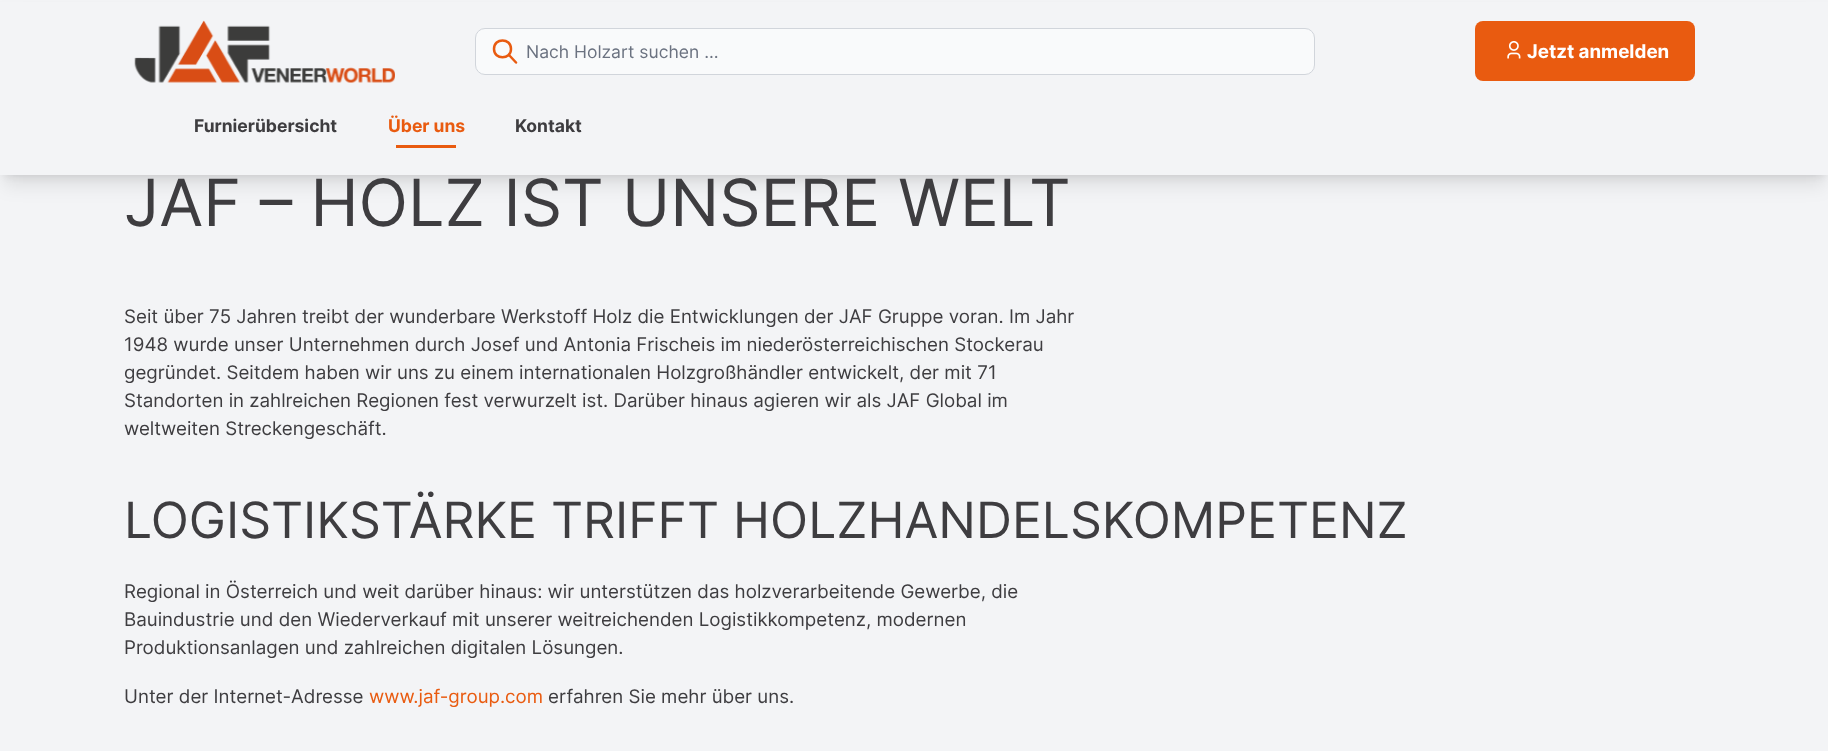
<svg xmlns="http://www.w3.org/2000/svg" width="1828" height="751">
<style>
.a{font:17.5px Inter;fill:#6b7280}
.b{font:bold 18.75px Inter;fill:#fff}
.c{font:bold 17.5px Inter;fill:#3e3d40}
.d{font:bold 17.5px Inter;fill:#e95b10}
.e{font:65px Inter;fill:#3e3d40}
.f{font:18.75px Inter;fill:#3e3d40}
.g{font:50px Inter;fill:#3e3d40}
.h{font:18.75px Inter;fill:#e95b10}
</style>
<rect width="100%" height="100%" fill="#f3f4f6"/>
<path fill="#0000001a" filter="blur(4px)" d="M5 10h1819v165H5z"/>
<path fill="#0000001a" filter="blur(9.5px)" d="M4 16h1821v168H4z"/>
<path fill="#f3f4f6" d="M0 2h1828v173H0z"/>
<image href="1.png" x="134" y="20" width="261" height="63"/>
<rect fill="#f9fafb" stroke="#d1d5db" x="475.5" y="28.5" width="839" height="46" rx="9.5"/>
<path fill="none" stroke="#e95b10" stroke-width="2.5" stroke-linecap="round" stroke-linejoin="round" d="M516 62.5l-7-7.5m2-6c0 11-17 11-17 0c0-11.5 17-11.5 17 0z"/>
<rect fill="#e95b10" x="1475" y="21" width="220" height="60" rx="8"/>
<image href="2.png" x="1507" y="40" width="14" height="19"/>
<path fill="#e95b10" d="M396 145h60v3H396z"/>
<text class="a" x="526" y="58">Nach Holzart suchen ...</text>
<text class="b" x="1527" y="58">Jetzt anmelden</text>
<text class="c" x="194" y="132">Furnierübersicht</text>
<text class="d" x="388" y="132">Über uns</text>
<text class="c" x="515" y="132">Kontakt</text>
<text class="e" x="124" y="226">JAF – HOLZ IST UNSERE WELT</text>
<text class="f" x="124" y="323">Seit über 75 Jahren treibt der wunderbare Werkstoff Holz die Entwicklungen der JAF Gruppe voran. Im Jahr</text>
<text class="f" x="124" y="351">1948 wurde unser Unternehmen durch Josef und Antonia Frischeis im niederösterreichischen Stockerau</text>
<text class="f" x="124" y="379">gegründet. Seitdem haben wir uns zu einem internationalen Holzgroßhändler entwickelt, der mit 71</text>
<text class="f" x="124" y="407">Standorten in zahlreichen Regionen fest verwurzelt ist. Darüber hinaus agieren wir als JAF Global im</text>
<text class="f" x="124" y="435">weltweiten Streckengeschäft.</text>
<text class="g" x="124" y="538">LOGISTIKSTÄRKE TRIFFT HOLZHANDELSKOMPETENZ</text>
<text class="f" x="124" y="598">Regional in Österreich und weit darüber hinaus: wir unterstützen das holzverarbeitende Gewerbe, die</text>
<text class="f" x="124" y="626">Bauindustrie und den Wiederverkauf mit unserer weitreichenden Logistikkompetenz, modernen</text>
<text class="f" x="124" y="654">Produktionsanlagen und zahlreichen digitalen Lösungen.</text>
<text class="f" x="124" y="703">Unter der Internet-Adresse</text>
<text class="h" x="369" y="703">www.jaf-group.com</text>
<text class="f" x="548" y="703">erfahren Sie mehr über uns.</text>
</svg>
